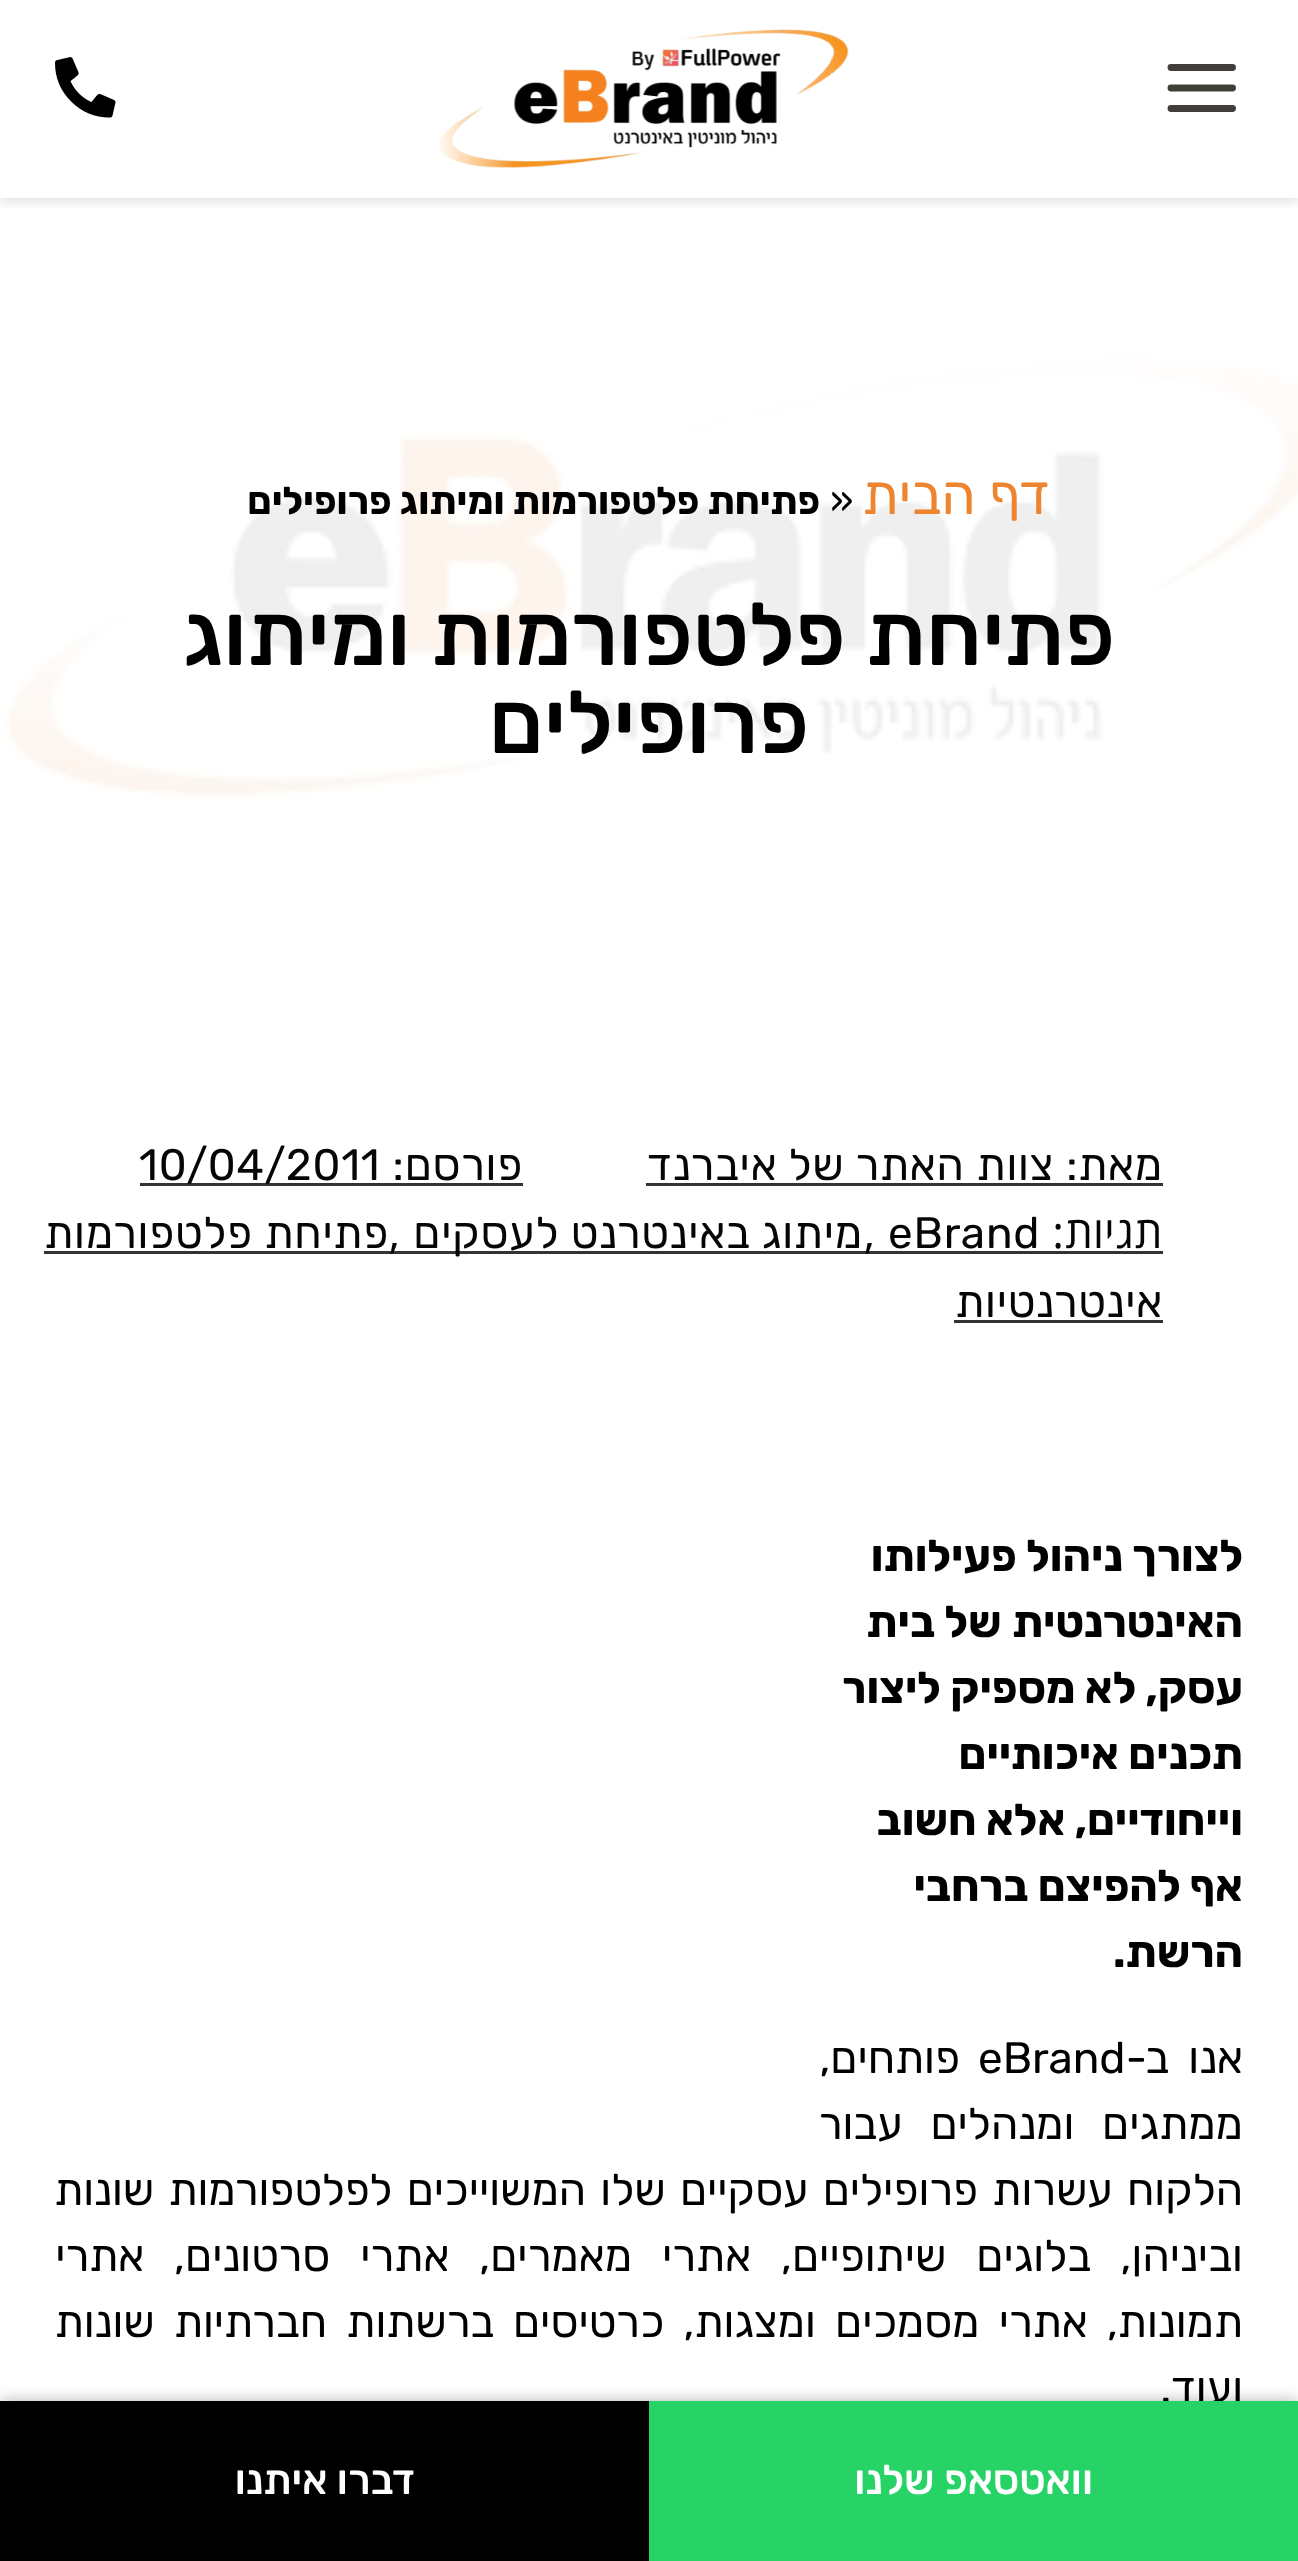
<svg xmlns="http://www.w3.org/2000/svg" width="1298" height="2561">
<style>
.a{font:55px Rubik;direction:rtl;fill:#ed8530}
.b{font:38.5px Rubik;fill:#000}
.c{font:bold 38.5px Rubik;direction:rtl;fill:#000}
.d{font:500 88px Rubik;direction:rtl;fill:#000}
.e{font:44px Rubik;letter-spacing:0.8px;direction:rtl;fill:#060606}
.f{font:44px Rubik;letter-spacing:0.8px;fill:#060606}
.g{font:44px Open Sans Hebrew;letter-spacing:0.8px;direction:rtl;fill:#060606}
.h{font:44px Open Sans Hebrew;letter-spacing:0.8px;fill:#060606}
.i{font:bold 44px Rubik;direction:rtl;fill:#000}
.j{font:44px Rubik;direction:rtl;fill:#000}
.k{font:44px Rubik;fill:#000}
.l{font:500 41.25px Rubik;direction:rtl;fill:#fff}
</style>
<defs>
<clipPath id="clip1"><path d="M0 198h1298v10H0z"/></clipPath>
</defs>
<rect width="100%" height="100%" fill="#fff"/>
<image href="1.png" x="1" y="354" width="1297" height="455"/>
<path fill="#333" d="M646 1183h517v3H646z"/>
<path fill="#333" d="M140 1183h383v3H140z"/>
<path fill="#333" d="M44 1251h1119v3H44z"/>
<path fill="#333" d="M954 1320h209v3H954z"/>
<g clip-path="url(#clip1)">
<path fill="#00000033" filter="blur(8px)" d="M0 0h1298v198H0z"/>
</g>
<path fill="none" stroke="#413d38" stroke-width="6.9" stroke-linecap="round" stroke-linejoin="round" d="M1171 88h61.5"/>
<path fill="none" stroke="#413d38" stroke-width="6.9" stroke-linecap="round" stroke-linejoin="round" d="M1171 67.5h61.5"/>
<path fill="none" stroke="#413d38" stroke-width="6.9" stroke-linecap="round" stroke-linejoin="round" d="M1171 108.5h61.5"/>
<image href="2.png" x="439" y="29" width="410" height="139"/>
<image href="3.png" x="55" y="57" width="61" height="61"/>
<path fill="#0000004d" filter="blur(8px)" d="M0 2401h1298v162H0z"/>
<path fill="#000" d="M0 2401h649v160H0z"/>
<text class="a" x="1050" y="514" word-spacing="1">דף הבית</text>
<text class="b" x="830" y="514">»</text>
<text class="c" x="820" y="514">פתיחת פלטפורמות ומיתוג פרופילים</text>
<text class="d" x="1115" y="665">פתיחת פלטפורמות ומיתוג</text>
<text class="d" x="809" y="753">פרופילים</text>
<text class="e" x="1163" y="1180">מאת:</text>
<text class="e" x="1054" y="1180" word-spacing="0.5">צוות האתר של איברנד</text>
<text class="e" x="523" y="1180">פורסם:</text>
<text class="f" x="139" y="1180">10/04/2011</text>
<text class="g" x="1163" y="1248">תגיות:</text>
<text class="f" x="888" y="1248">eBrand</text>
<text class="h" x="864" y="1248">,</text>
<text class="e" x="863" y="1248">מיתוג באינטרנט לעסקים</text>
<text class="h" x="389" y="1248">,</text>
<text class="e" x="389" y="1248">פתיחת פלטפורמות</text>
<text class="e" x="1163" y="1317">אינטרנטיות</text>
<text class="i" x="1243" y="1571" word-spacing="1">לצורך ניהול פעילותו</text>
<text class="i" x="1243" y="1637" word-spacing="1">האינטרנטית של בית</text>
<text class="i" x="1243" y="1703">עסק, לא מספיק ליצור</text>
<text class="i" x="1243" y="1769">תכנים איכותיים</text>
<text class="i" x="1243" y="1835">וייחודיים, אלא חשוב</text>
<text class="i" x="1243" y="1901">אף להפיצם ברחבי</text>
<text class="i" x="1243" y="1967">הרשת.</text>
<text class="j" x="1243" y="2073" word-spacing="9">אנו ב-</text>
<text class="k" x="978" y="2073">eBrand</text>
<text class="j" x="960" y="2073">פותחים,</text>
<text class="j" x="1243" y="2139" word-spacing="17">ממתגים ומנהלים עבור</text>
<text class="j" x="1243" y="2205" word-spacing="3.5">הלקוח עשרות פרופילים עסקיים שלו המשוייכים לפלטפורמות שונות</text>
<text class="j" x="1243" y="2271" word-spacing="19.25">וביניהן, בלוגים שיתופיים, אתרי מאמרים, אתרי סרטונים, אתרי</text>
<text class="j" x="1243" y="2337" word-spacing="8.5">תמונות, אתרי מסמכים ומצגות, כרטיסים ברשתות חברתיות שונות</text>
<text class="j" x="1243" y="2403">ועוד.</text>
<path fill="#27d367" d="M649 2401h649v160H649z"/>
<text class="l" x="1093" y="2494">וואטסאפ שלנו</text>
<text class="l" x="415" y="2494">דברו איתנו</text>
</svg>
